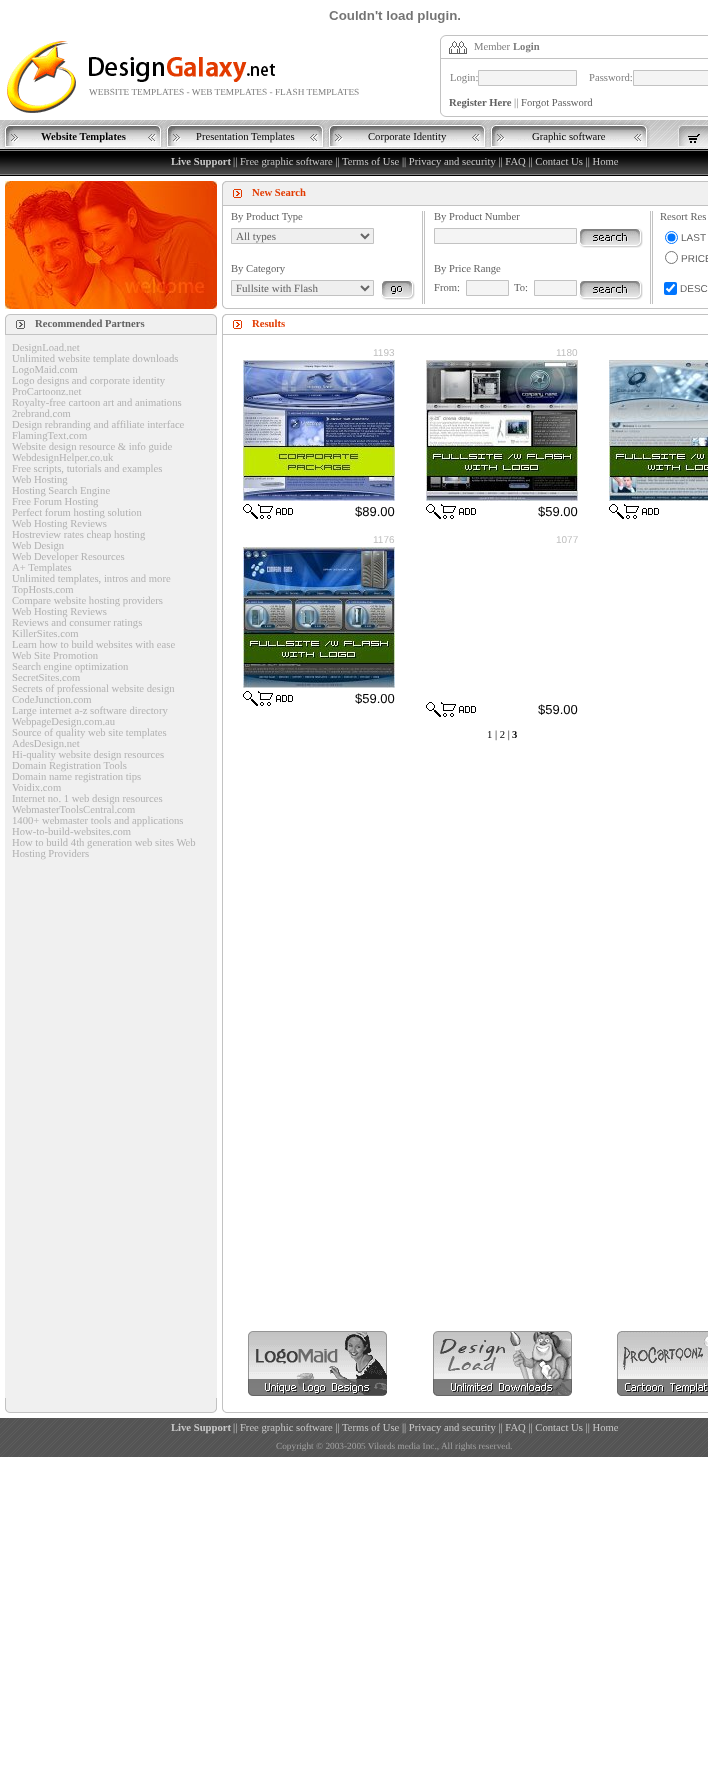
<svg xmlns="http://www.w3.org/2000/svg" width="708" height="1784">
<style>
.a{font:9.3px Liberation Serif;fill:#7d7d7d}
.b{font:10.65px Liberation Serif;fill:#7d7d7d}
.c{font:bold 10.65px Liberation Serif;fill:#7d7d7d}
.d{font:bold 10.65px Liberation Serif;fill:#616161}
.e{font:10.65px Liberation Serif;fill:#616161}
.f{font:bold 10.65px Liberation Serif;fill:#000}
.g{font:10.65px Liberation Serif;fill:#000}
.h{font:bold 10.65px Liberation Serif;fill:#c8c8c8}
.i{font:10.65px Liberation Serif;fill:#c8c8c8}
.j{font:10.65px Liberation Serif;fill:#b1b1b1}
.k{font:bold 10.65px Liberation Serif;fill:#e23a00}
.l{font:11px Liberation Serif;fill:#616161}
.m{font:10px Liberation Sans;fill:#616161}
.n{font:10px Liberation Sans;fill:#bfbfbf}
.o{font:13px Liberation Sans;fill:#000}
.p{font:9.3px Liberation Serif;fill:#a1a1a1}
</style>
<rect width="100%" height="100%" fill="#fff"/>
<image href="1.png" x="329" y="11" width="131" height="12"/>
<image href="2.png" x="7" y="41" width="69" height="72"/>
<image href="3.png" x="89" y="57" width="186" height="25"/>
<image href="4.png" x="440" y="35" width="268" height="24"/>
<image href="5.png" x="440" y="59" width="268" height="58"/>
<path fill="#f4f4f4" stroke="#c2c2c2" d="M478.5 70.5h98v15H478.5z"/>
<path fill="#f4f4f4" stroke="#c2c2c2" d="M633.5 70.5h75v15H633.5z"/>
<image href="6.png" x="0" y="120" width="708" height="29"/>
<image href="7.png" x="2" y="120" width="648" height="29"/>
<image href="8.png" x="678" y="125" width="30" height="24"/>
<image href="9.png" x="0" y="149" width="708" height="27"/>
<image href="10.png" x="5" y="181" width="212" height="128"/>
<image href="11.png" x="5" y="314" width="212" height="21"/>
<path fill="#f0f0f0" d="M5 335h212v1063H5z"/>
<image href="12.png" x="5" y="1398" width="212" height="15"/>
<image href="13.png" x="222" y="181" width="486" height="25"/>
<image href="14.png" x="222" y="206" width="486" height="103"/>
<path fill="#efefef" stroke="#c2c2c2" d="M231.5 228.5h142v15H231.5z"/>
<path fill="none" stroke="#666" stroke-width="2" d="M361 234l4 4l4-4"/>
<path fill="#efefef" stroke="#c2c2c2" d="M231.5 280.5h142v15H231.5z"/>
<path fill="none" stroke="#666" stroke-width="2" d="M361 286l4 4l4-4"/>
<image href="15.png" x="381" y="280" width="34" height="20"/>
<path fill="#f4f4f4" stroke="#c2c2c2" d="M434.5 228.5h142v15H434.5z"/>
<image href="16.png" x="579" y="228" width="64" height="20"/>
<path fill="#f4f4f4" stroke="#c2c2c2" d="M466.5 280.5h42v15H466.5z"/>
<path fill="#f4f4f4" stroke="#c2c2c2" d="M534.5 280.5h42v15H534.5z"/>
<image href="16.png" x="579" y="280" width="64" height="20"/>
<circle fill="none" stroke="#0075ff" cx="671.5" cy="237.5" r="6"/>
<circle fill="#0075ff" cx="671.5" cy="237.5" r="4"/>
<circle fill="none" stroke="#767676" cx="671.5" cy="257.5" r="6"/>
<rect fill="#0075ff" x="664" y="282" width="13" height="13" rx="2"/>
<path fill="none" stroke="#fff" stroke-width="2.1" d="M666.5 288.5l2.5 2.5l5.5-6.5"/>
<image href="17.png" x="222" y="314" width="486" height="21"/>
<path fill="#c2c2c2" d="M222 335h1v1063H222z"/>
<image href="18.png" x="243" y="360" width="152" height="141"/>
<image href="19.png" x="243" y="504" width="15" height="15"/>
<image href="20.png" x="258" y="504" width="35" height="15"/>
<image href="21.png" x="426" y="360" width="152" height="141"/>
<image href="19.png" x="426" y="504" width="15" height="15"/>
<image href="20.png" x="441" y="504" width="35" height="15"/>
<image href="22.png" x="609" y="360" width="99" height="141"/>
<image href="19.png" x="609" y="504" width="15" height="15"/>
<image href="20.png" x="624" y="504" width="35" height="15"/>
<image href="23.png" x="243" y="547" width="152" height="141"/>
<image href="19.png" x="243" y="691" width="15" height="15"/>
<image href="20.png" x="258" y="691" width="35" height="15"/>
<image href="19.png" x="426" y="702" width="15" height="15"/>
<image href="20.png" x="441" y="702" width="35" height="15"/>
<image href="24.png" x="248" y="1331" width="139" height="65"/>
<image href="25.png" x="433" y="1331" width="139" height="65"/>
<image href="26.png" x="617" y="1331" width="91" height="65"/>
<image href="27.png" x="222" y="1398" width="486" height="15"/>
<image href="28.png" x="0" y="1418" width="708" height="39"/>
<text class="a" x="89" y="95">WEBSITE TEMPLATES - WEB TEMPLATES - FLASH TEMPLATES</text>
<text class="b" x="474" y="50">Member</text>
<text class="c" x="513" y="50">Login</text>
<text class="b" x="450" y="81">Login:</text>
<text class="b" x="589" y="81">Password:</text>
<text class="d" x="449" y="106">Register Here</text>
<text class="b" x="514" y="106">||</text>
<text class="e" x="521" y="106">Forgot Password</text>
<text class="f" x="41" y="140">Website Templates</text>
<text class="g" x="196" y="140">Presentation Templates</text>
<text class="g" x="368" y="140">Corporate Identity</text>
<text class="g" x="532" y="140">Graphic software</text>
<text class="h" x="171" y="165">Live Support</text>
<text class="i" x="233" y="165">|| Free graphic software || Terms of Use || Privacy and security || FAQ || Contact Us || Home</text>
<text class="d" x="35" y="327">Recommended Partners</text>
<text class="j" x="12" y="351">DesignLoad.net</text>
<text class="j" x="12" y="362">Unlimited website template downloads</text>
<text class="j" x="12" y="373">LogoMaid.com</text>
<text class="j" x="12" y="384">Logo designs and corporate identity</text>
<text class="j" x="12" y="395">ProCartoonz.net</text>
<text class="j" x="12" y="406">Royalty-free cartoon art and animations</text>
<text class="j" x="12" y="417">2rebrand.com</text>
<text class="j" x="12" y="428">Design rebranding and affiliate interface</text>
<text class="j" x="12" y="439">FlamingText.com</text>
<text class="j" x="12" y="450">Website design resource &amp; info guide</text>
<text class="j" x="12" y="461">WebdesignHelper.co.uk</text>
<text class="j" x="12" y="472">Free scripts, tutorials and examples</text>
<text class="j" x="12" y="483">Web Hosting</text>
<text class="j" x="12" y="494">Hosting Search Engine</text>
<text class="j" x="12" y="505">Free Forum Hosting</text>
<text class="j" x="12" y="516">Perfect forum hosting solution</text>
<text class="j" x="12" y="527">Web Hosting Reviews</text>
<text class="j" x="12" y="538">Hostreview rates cheap hosting</text>
<text class="j" x="12" y="549">Web Design</text>
<text class="j" x="12" y="560">Web Developer Resources</text>
<text class="j" x="12" y="571">A+ Templates</text>
<text class="j" x="12" y="582">Unlimited templates, intros and more</text>
<text class="j" x="12" y="593">TopHosts.com</text>
<text class="j" x="12" y="604">Compare website hosting providers</text>
<text class="j" x="12" y="615">Web Hosting Reviews</text>
<text class="j" x="12" y="626">Reviews and consumer ratings</text>
<text class="j" x="12" y="637">KillerSites.com</text>
<text class="j" x="12" y="648">Learn how to build websites with ease</text>
<text class="j" x="12" y="659">Web Site Promotion</text>
<text class="j" x="12" y="670">Search engine optimization</text>
<text class="j" x="12" y="681">SecretSites.com</text>
<text class="j" x="12" y="692">Secrets of professional website design</text>
<text class="j" x="12" y="703">CodeJunction.com</text>
<text class="j" x="12" y="714">Large internet a-z software directory</text>
<text class="j" x="12" y="725">WebpageDesign.com.au</text>
<text class="j" x="12" y="736">Source of quality web site templates</text>
<text class="j" x="12" y="747">AdesDesign.net</text>
<text class="j" x="12" y="758">Hi-quality website design resources</text>
<text class="j" x="12" y="769">Domain Registration Tools</text>
<text class="j" x="12" y="780">Domain name registration tips</text>
<text class="j" x="12" y="791">Voidix.com</text>
<text class="j" x="12" y="802">Internet no. 1 web design resources</text>
<text class="j" x="12" y="813">WebmasterToolsCentral.com</text>
<text class="j" x="12" y="824">1400+ webmaster tools and applications</text>
<text class="j" x="12" y="835">How-to-build-websites.com</text>
<text class="j" x="12" y="846">How to build 4th generation web sites Web</text>
<text class="j" x="12" y="857">Hosting Providers</text>
<text class="k" x="252" y="196">New Search</text>
<text class="e" x="231" y="220">By Product Type</text>
<text class="l" x="236" y="240">All types</text>
<text class="e" x="231" y="272">By Category</text>
<text class="l" x="236" y="292">Fullsite with Flash</text>
<text class="e" x="434" y="220">By Product Number</text>
<text class="e" x="434" y="272">By Price Range</text>
<text class="e" x="434" y="291">From:</text>
<text class="e" x="514" y="291">To:</text>
<text class="e" x="660" y="220">Resort Res</text>
<text class="m" x="681" y="241">LAST</text>
<text class="m" x="681" y="262">PRICE</text>
<text class="m" x="680" y="292">DESC</text>
<text class="k" x="252" y="327">Results</text>
<text class="n" x="373" y="356">1193</text>
<text class="o" x="355" y="516">$89.00</text>
<text class="n" x="556" y="356">1180</text>
<text class="o" x="538" y="516">$59.00</text>
<text class="n" x="373" y="543">1176</text>
<text class="o" x="355" y="703">$59.00</text>
<text class="n" x="556" y="543">1077</text>
<text class="o" x="538" y="714">$59.00</text>
<text class="g" x="487" y="738">1 | 2 |</text>
<text class="f" x="512" y="738">3</text>
<text class="h" x="171" y="1431">Live Support</text>
<text class="i" x="233" y="1431">|| Free graphic software || Terms of Use || Privacy and security || FAQ || Contact Us || Home</text>
<text class="p" x="276" y="1449">Copyright © 2003-2005 Vilords media Inc., All rights reserved.</text>
</svg>
